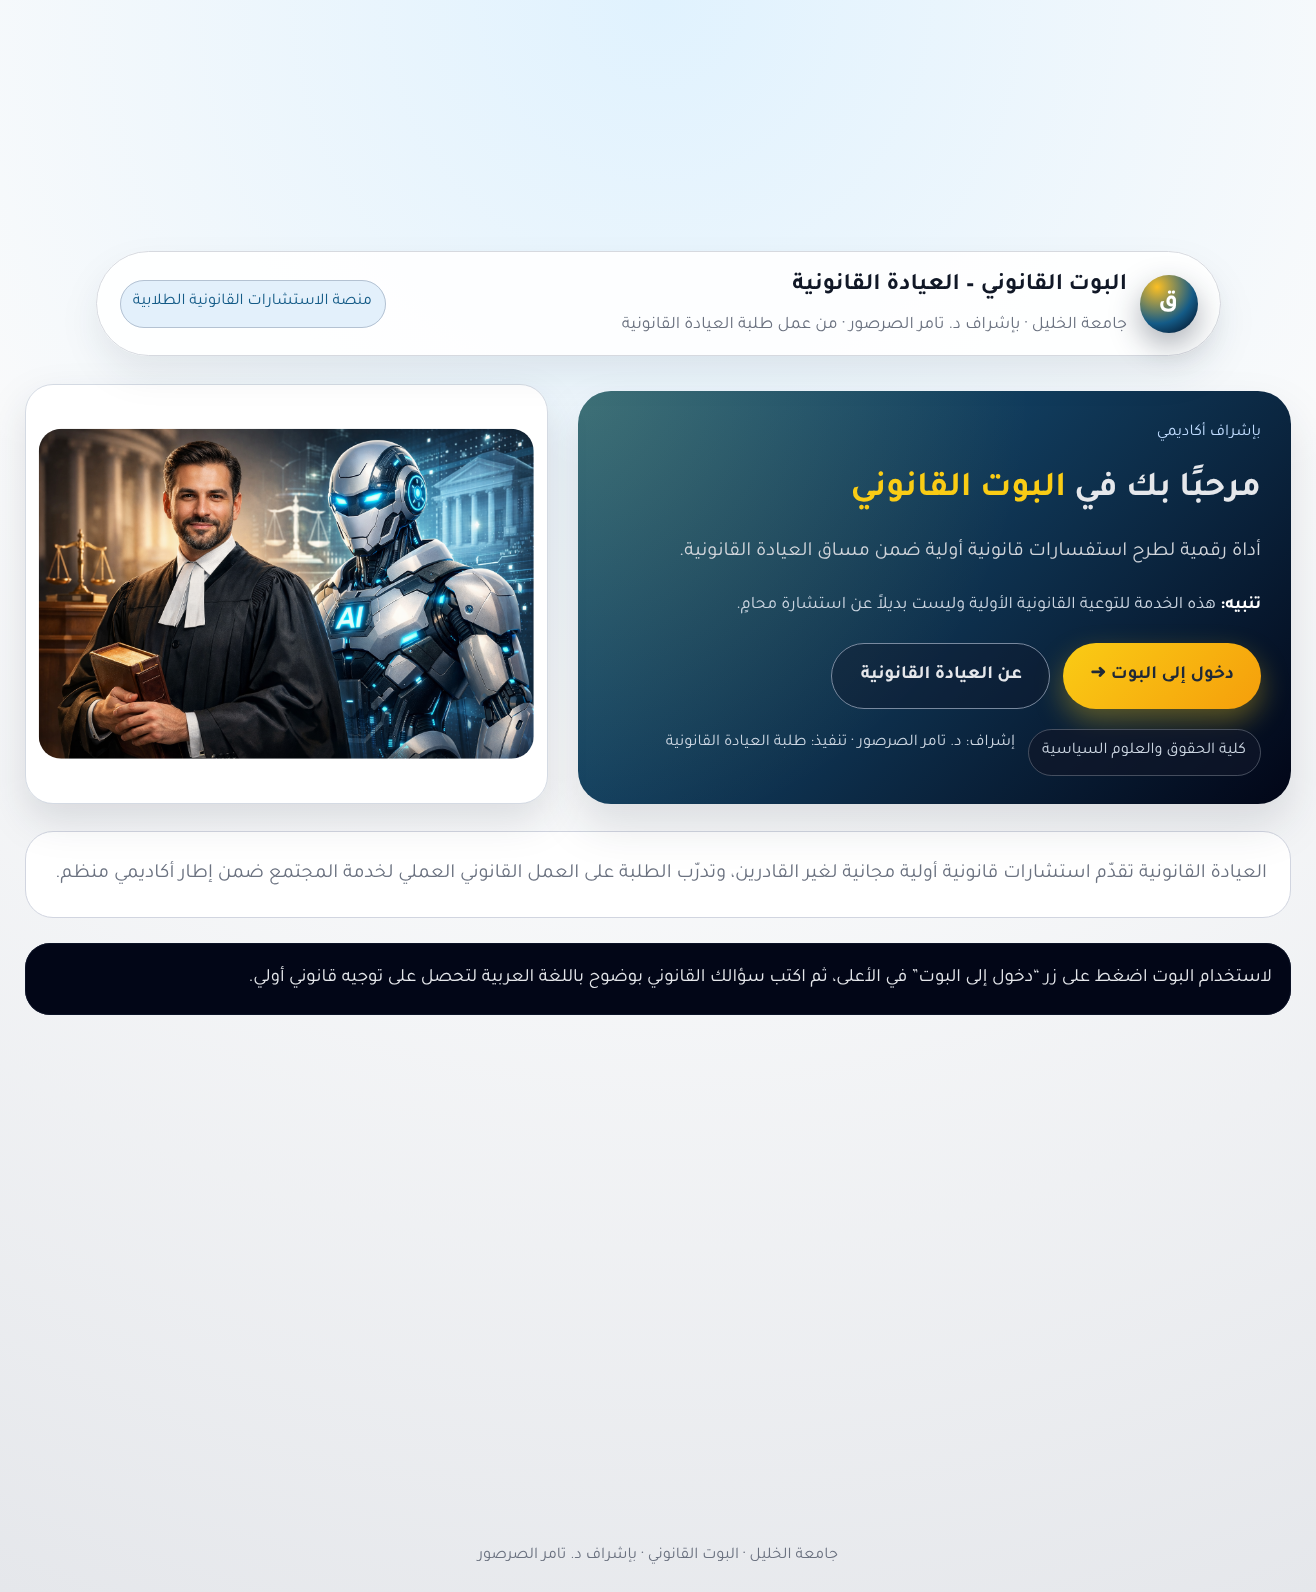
<svg xmlns="http://www.w3.org/2000/svg" width="1316" height="1592">
<style>
.a{font:bold 25px Tajawal;direction:rtl;fill:#fff}
.b{font:bold 23.75px Tajawal;direction:rtl;fill:#111827}
.c{font:17.5px Tajawal;direction:rtl;fill:#6b7280}
.d{font:16.25px Tajawal;direction:rtl;fill:#145b87}
.e{font:16.25px Tajawal;direction:rtl;fill:#bfdbfe}
.f{font:bold 35px Tajawal;direction:rtl;fill:#e5e7eb}
.g{font:bold 35px Tajawal;direction:rtl;fill:#facc15}
.h{font:20px Tajawal;direction:rtl;fill:#d1d5db}
.i{font:bold 17.5px Tajawal;direction:rtl;fill:#fff}
.j{font:17.5px Tajawal;direction:rtl;fill:#cbd5e1}
.k{font:bold 18.75px Tajawal;direction:rtl;fill:#1f2937}
.l{font:bold 18.75px DejaVu Sans;direction:rtl;fill:#1f2937}
.m{font:bold 18.75px Tajawal;direction:rtl;fill:#e5e7eb}
.n{font:16.25px Tajawal;direction:rtl;fill:#cbd5e1}
.o{font:20px Tajawal;direction:rtl;fill:#6b7280}
.p{font:18.75px Tajawal;direction:rtl;fill:#e5e7eb}
.q{font:16.25px Tajawal;direction:rtl;fill:#6b7280}
</style>
<defs>
<radialGradient id="g1" gradientUnits="userSpaceOnUse" cx="658" cy="0" r="1723"><stop offset="0" stop-color="#e0f2fe"/><stop offset="0.45" stop-color="#f9fafb"/><stop offset="1" stop-color="#e5e7eb"/></radialGradient>
<clipPath id="clip1"><path d="M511 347h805v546h-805zm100 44h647c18 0 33 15 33 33v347c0 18-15 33-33 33h-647c-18 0-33-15-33-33v-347c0-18 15-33 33-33z" clip-rule="evenodd"/></clipPath>
<linearGradient id="g2" gradientUnits="userSpaceOnUse" x1="653" y1="316" x2="1216" y2="879"><stop offset="0" stop-color="#145b87" stop-opacity="0.97"/><stop offset="1" stop-color="#020617"/></linearGradient>
<radialGradient id="g3" gradientUnits="userSpaceOnUse" cx="578" cy="391" r="824"><stop offset="0" stop-color="#facc15" stop-opacity="0.16"/><stop offset="0.55" stop-color="#facc15" stop-opacity="0"/></radialGradient>
<clipPath id="clip2"><path d="M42 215h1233v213h-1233zm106.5 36h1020c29 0 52.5 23.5 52.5 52.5c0 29-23.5 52.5-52.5 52.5h-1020c-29 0-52.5-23.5-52.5-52.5c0-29 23.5-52.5 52.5-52.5z" clip-rule="evenodd"/></clipPath>
<radialGradient id="g4" gradientUnits="userSpaceOnUse" cx="1157" cy="287" r="61"><stop offset="0" stop-color="#fbbf24"/><stop offset="0.6" stop-color="#145b87"/><stop offset="1" stop-color="#020617"/></radialGradient>
<linearGradient id="g5" gradientUnits="userSpaceOnUse" x1="1096" y1="609" x2="1228" y2="742"><stop offset="0" stop-color="#facc15"/><stop offset="1" stop-color="#f59e0b"/></linearGradient>
</defs>
<rect width="100%" height="100%" fill="#fff"/>
<path fill="url(#g1)" d="M0 0h1316v1592H0z"/>
<rect fill="#fff" stroke="#d1d5e0" x="25.5" y="831.5" width="1265" height="86" rx="27.5"/>
<g clip-path="url(#clip1)">
<rect fill="#0f172a1f" filter="blur(22px)" x="578" y="414" width="713" height="412" rx="33"/>
</g>
<rect fill="url(#g2)" x="578" y="391" width="713" height="413" rx="33"/>
<rect fill="url(#g3)" x="578" y="391" width="713" height="413" rx="33"/>
<rect fill="#0f172a1f" filter="blur(19px)" x="25" y="401" width="523" height="420" rx="28"/>
<rect fill="#fff" x="25" y="384" width="523" height="420" rx="28"/>
<rect fill="none" stroke="#94a3b866" x="25.5" y="384.5" width="522" height="419" rx="27.5"/>
<g clip-path="url(#clip2)">
<rect fill="#0f172a14" filter="blur(17.5px)" x="96" y="269" width="1125" height="105" rx="52.5"/>
</g>
<rect fill="#ffffffe6" x="96" y="251" width="1125" height="105" rx="52.5"/>
<rect fill="none" stroke="#d1d5dbe6" x="96.5" y="251.5" width="1124" height="104" rx="52"/>
<rect fill="#0f172a59" filter="blur(15.5px)" x="1140" y="288" width="58" height="57" rx="28.5"/>
<circle fill="url(#g4)" cx="1169" cy="304" r="29"/>
<rect fill="#e3f0fb" x="120" y="280" width="266" height="48" rx="24"/>
<rect fill="none" stroke="#94a3b899" x="120.5" y="280.5" width="265" height="47" rx="23.5"/>
<rect fill="#facc1559" filter="blur(14px)" x="1063" y="655" width="198" height="66" rx="33"/>
<rect fill="url(#g5)" x="1063" y="643" width="198" height="66" rx="33"/>
<rect fill="#0f172a66" x="831" y="643" width="219" height="66" rx="33"/>
<rect fill="none" stroke="#94a3b8cc" x="831.5" y="643.5" width="218" height="65" rx="32.5"/>
<rect fill="#0f172ab3" x="1028" y="729" width="233" height="47" rx="23.5"/>
<rect fill="none" stroke="#9ca3af66" x="1028.5" y="729.5" width="232" height="46" rx="23"/>
<image href="1.png" x="38" y="428" width="496" height="331"/>
<rect fill="#020617" x="25" y="943" width="1266" height="72" rx="25"/>
<rect fill="none" stroke="#0f172acc" x="25.5" y="943.5" width="1265" height="71" rx="24.5"/>
<text class="a" x="1178" y="307">ق</text>
<text class="b" x="1127" y="289">البوت القانوني – العيادة القانونية</text>
<text class="c" x="1127" y="328">جامعة الخليل · بإشراف د. تامر الصرصور · من عمل طلبة العيادة القانونية</text>
<text class="d" x="372" y="304">منصة الاستشارات القانونية الطلابية</text>
<text class="e" x="1261" y="435">بإشراف أكاديمي</text>
<text class="f" x="1261" y="495">مرحبًا بك في</text>
<text class="g" x="1066" y="495">البوت القانوني</text>
<text class="h" x="1261" y="555">أداة رقمية لطرح استفسارات قانونية أولية ضمن مساق العيادة القانونية.</text>
<text class="i" x="1261" y="608">تنبيه:</text>
<text class="j" x="1216" y="608">هذه الخدمة للتوعية القانونية الأولية وليست بديلاً عن استشارة محامٍ.</text>
<text class="k" x="1234" y="678">دخول إلى البوت</text>
<text class="l" x="1106" y="678">➜</text>
<text class="m" x="1022" y="678">عن العيادة القانونية</text>
<text class="n" x="1246" y="753">كلية الحقوق والعلوم السياسية</text>
<text class="n" x="1015" y="745">إشراف: د. تامر الصرصور · تنفيذ: طلبة العيادة القانونية</text>
<text class="o" x="1267" y="877">العيادة القانونية تقدّم استشارات قانونية أولية مجانية لغير القادرين،</text>
<text class="o" x="726" y="877">وتدرّب الطلبة على العمل القانوني العملي لخدمة المجتمع ضمن إطار أكاديمي منظم.</text>
<text class="p" x="1272" y="981">لاستخدام البوت اضغط على زر “دخول إلى البوت” في الأعلى، ثم اكتب سؤالك القانوني</text>
<text class="p" x="643" y="981">بوضوح باللغة العربية لتحصل على توجيه قانوني أولي.</text>
<text class="q" x="838" y="1558">جامعة الخليل · البوت القانوني · بإشراف د. تامر الصرصور</text>
</svg>
